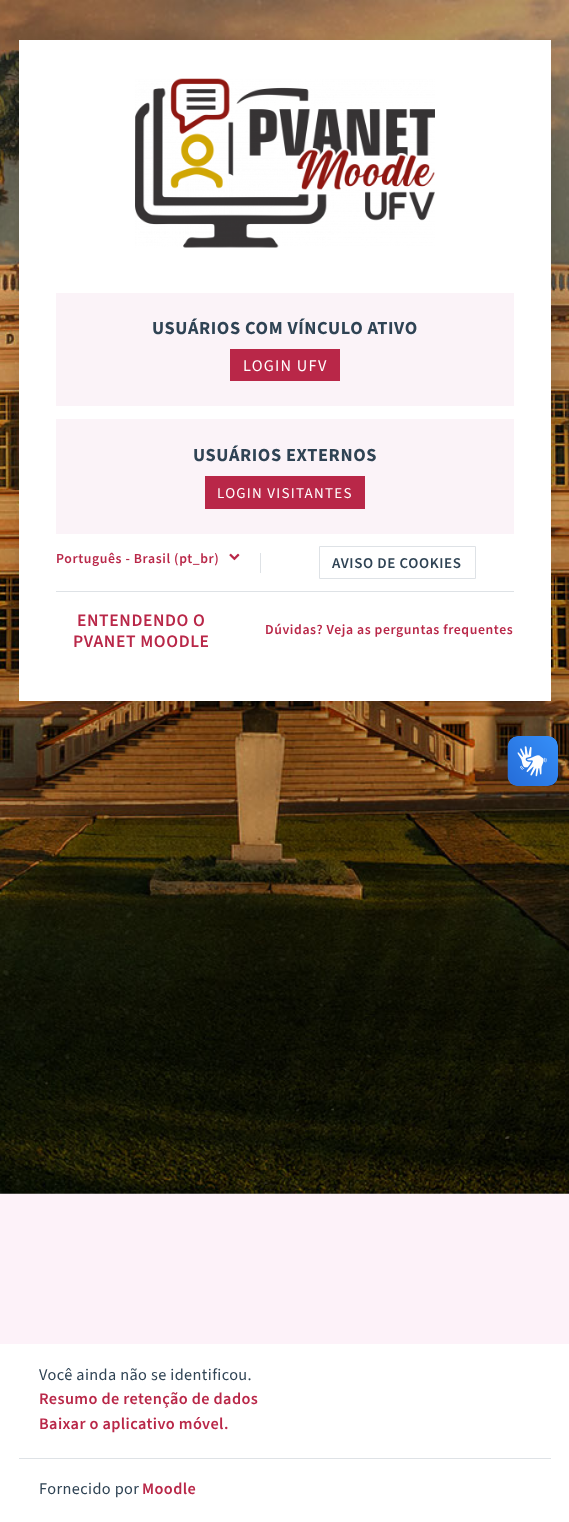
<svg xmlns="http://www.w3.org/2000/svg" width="569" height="1522">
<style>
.a{font:bold 18.3px 'Source Sans 3';letter-spacing:0.6px;fill:#2f4354}
.b{font:16.25px 'Source Sans 3';letter-spacing:1.25px;fill:#fff}
.c{font:15px 'Source Sans 3';letter-spacing:1.25px;fill:#fff}
.d{font:600 13.75px 'Source Sans 3';letter-spacing:0.6px;fill:#b92748}
.e{font:600 15px 'Source Sans 3';letter-spacing:0.6px;fill:#2f4354}
.f{font:600 17.5px 'Source Sans 3';letter-spacing:0.6px;fill:#b92748}
.g{font:16.25px 'Source Sans 3';letter-spacing:0.4px;fill:#2f4354}
.h{font:600 16.25px 'Source Sans 3';letter-spacing:0.4px;fill:#b92748}
</style>
<rect width="100%" height="100%" fill="#fdf2f9"/>
<image href="1.png" x="0" y="0" width="569" height="1194"/>
<path fill="#00000026" filter="blur(10px)" d="M19 50h532v661H19z"/>
<path fill="#fff" d="M19 40h532v661H19z"/>
<image href="2.png" x="135" y="78" width="300" height="170"/>
<path fill="#fbf3f8" d="M56 293h458v113H56z"/>
<path fill="#b92748" d="M230 349h110v32H230z"/>
<path fill="#fbf3f8" d="M56 419h458v115H56z"/>
<path fill="#b92748" d="M205 476h160v33H205z"/>
<image href="3.png" x="229" y="553" width="11" height="8"/>
<path fill="#dee2e6" d="M260 553h1v20H260z"/>
<path fill="none" stroke="#dee2e6" d="M319.5 546.5h156v32H319.5z"/>
<path fill="#dee2e6" d="M56 591h458v1H56z"/>
<image href="4.png" x="507" y="736" width="51" height="51"/>
<image href="5.png" x="508" y="736" width="50" height="50"/>
<path fill="#fff" d="M0 1344h569v178H0z"/>
<path fill="#dee2e6" d="M19 1458h532v1H19z"/>
<text class="a" x="152" y="334">USUÁRIOS COM VÍNCULO ATIVO</text>
<text class="b" x="243" y="371">LOGIN UFV</text>
<text class="a" x="193" y="461">USUÁRIOS EXTERNOS</text>
<text class="c" x="217" y="498">LOGIN VISITANTES</text>
<text class="d" x="56" y="563">Português - Brasil (pt_br)</text>
<text class="e" x="332" y="568">AVISO DE COOKIES</text>
<text class="f" x="77" y="626">ENTENDENDO O</text>
<text class="f" x="73" y="647">PVANET MOODLE</text>
<text class="d" x="265" y="634">Dúvidas? Veja as perguntas frequentes</text>
<text class="g" x="39" y="1380">Você ainda não se identificou.</text>
<text class="h" x="39" y="1404">Resumo de retenção de dados</text>
<text class="h" x="39" y="1429">Baixar o aplicativo móvel.</text>
<text class="g" x="39" y="1494">Fornecido por</text>
<text class="h" x="142" y="1494">Moodle</text>
</svg>
